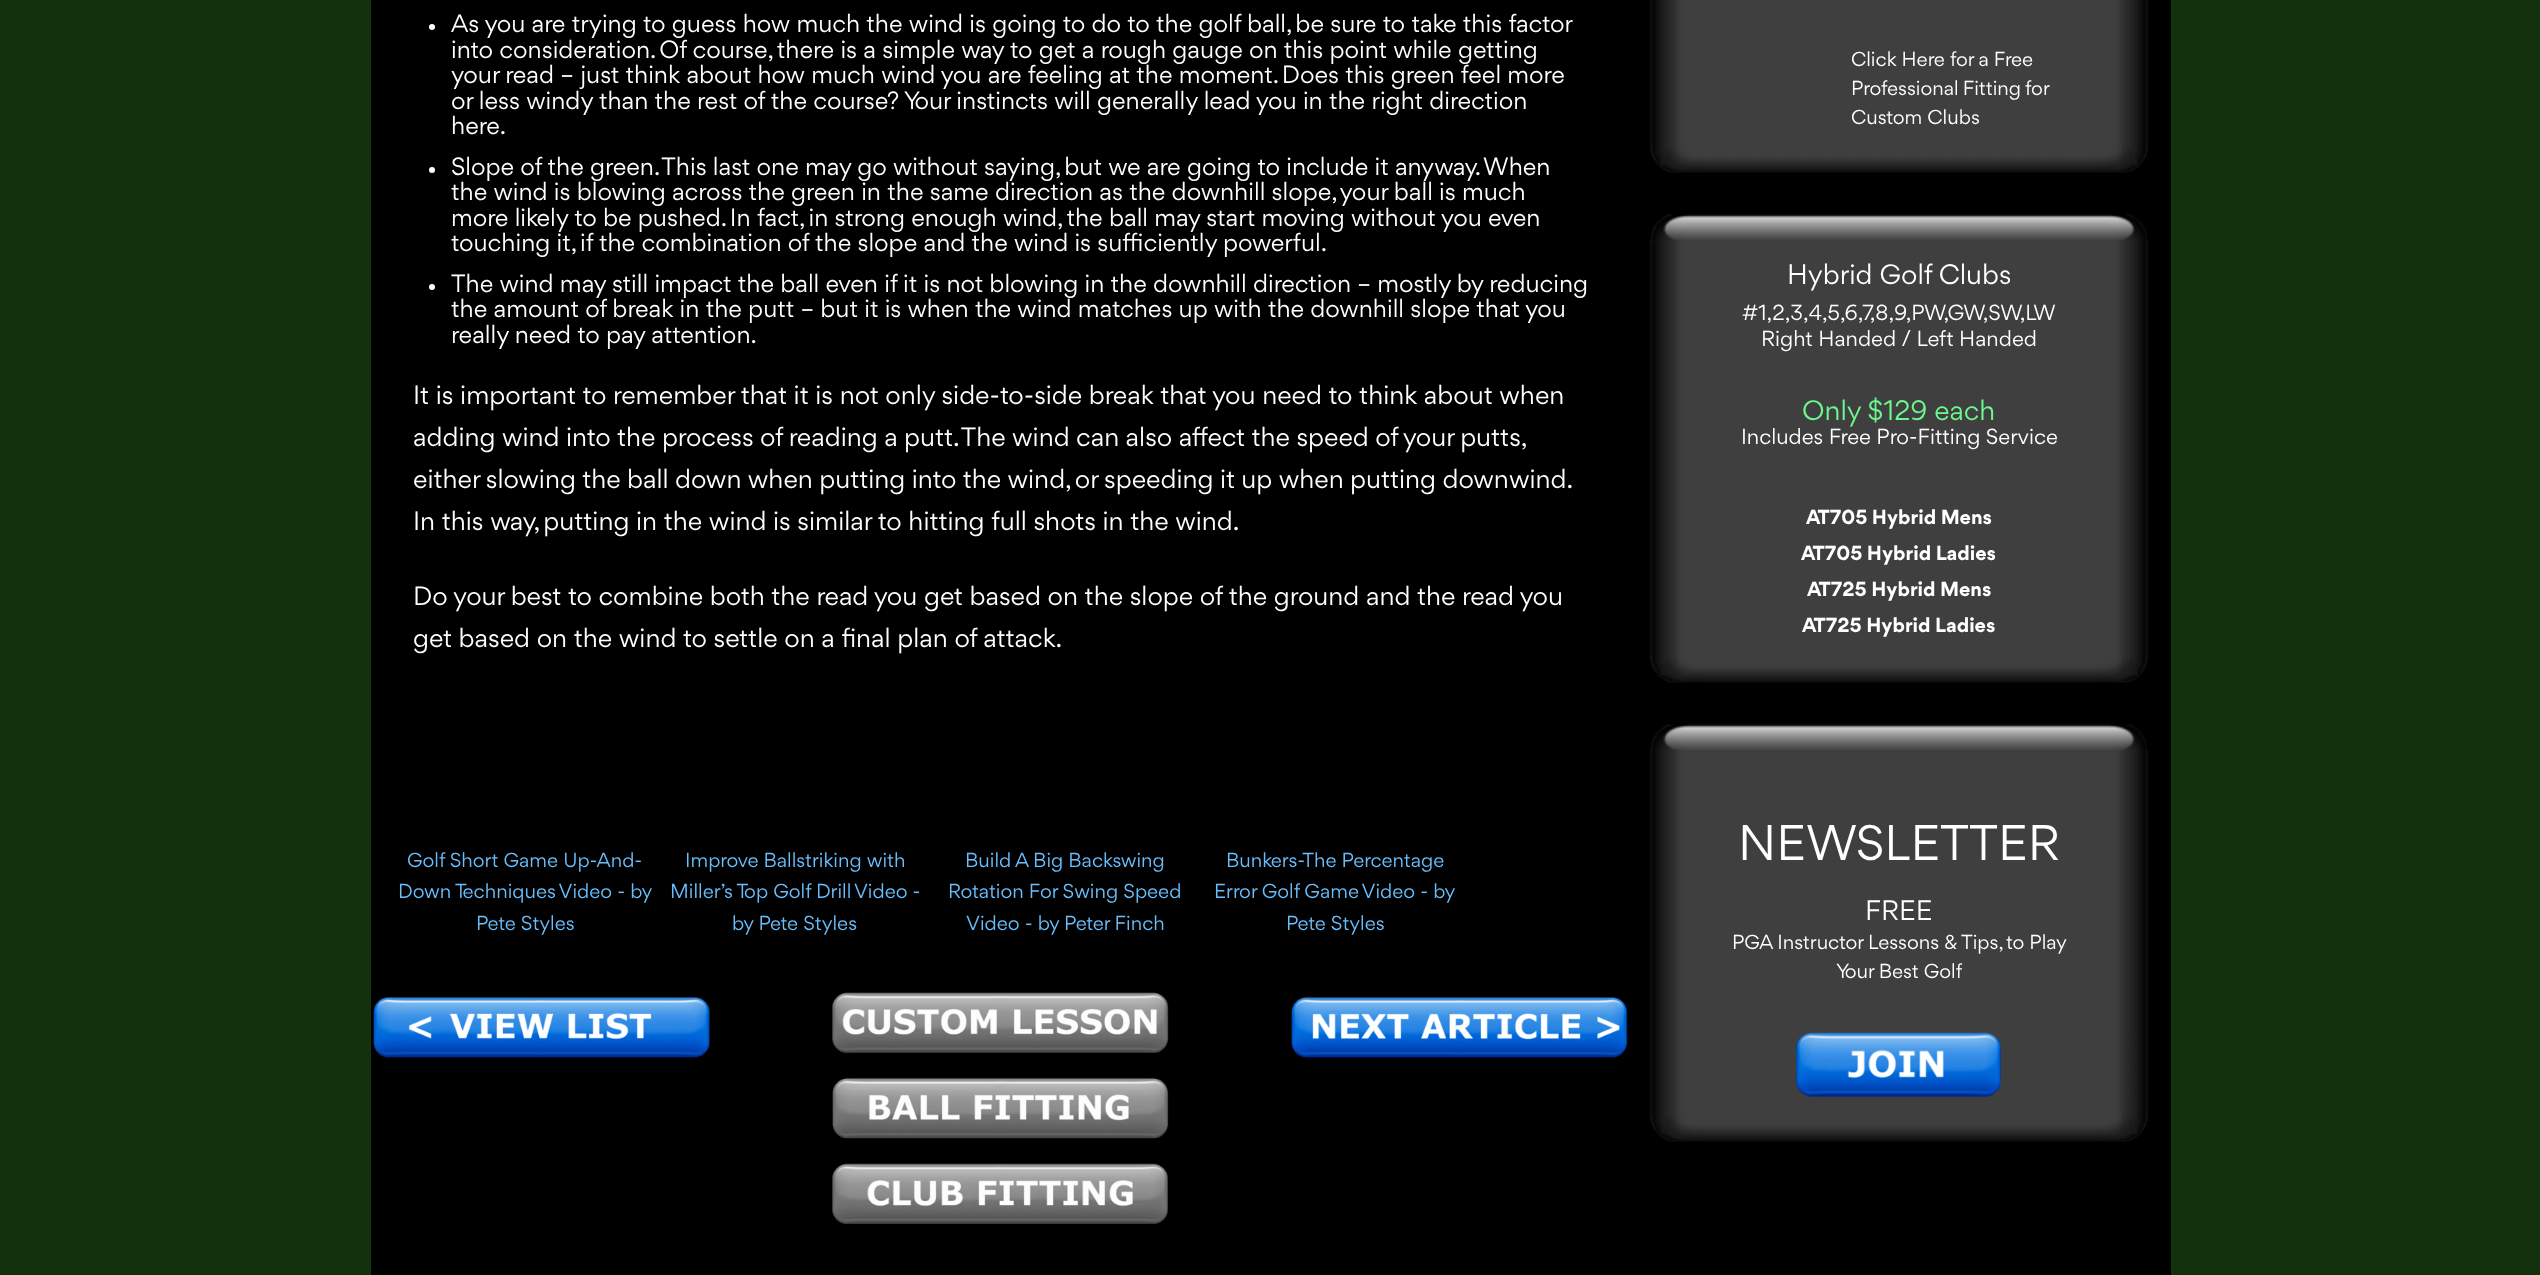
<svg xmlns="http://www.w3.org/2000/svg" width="2540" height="1275">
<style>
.a{font:24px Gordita;fill:#fff}
.b{font:25.5px Gordita;fill:#fff}
.c{font:19.5px Gordita;fill:#69bffe}
.d{font:19.5px Gordita;fill:#fff}
.e{font:27px Gordita;fill:#fff}
.f{font:21px Gordita;fill:#fff}
.g{font:27px Gordita;fill:#6cf88d}
.h{font:bold 19.5px Gordita;fill:#fff}
.i{font:48px Gordita;fill:#fff}
</style>
<rect width="100%" height="100%" fill="#13310d"/>
<path fill="#000" d="M371 0h1800v1275H371z"/>
<circle fill="#fff" cx="432" cy="27" r="3"/>
<circle fill="#fff" cx="432" cy="170" r="3"/>
<circle fill="#fff" cx="432" cy="287" r="3"/>
<image href="1.png" x="373" y="997" width="337" height="61"/>
<image href="2.png" x="832" y="992" width="337" height="61"/>
<image href="3.png" x="832" y="1078" width="337" height="61"/>
<image href="4.png" x="832" y="1163" width="336" height="61"/>
<image href="5.png" x="1291" y="997" width="337" height="61"/>
<image href="6.png" x="1650" y="145" width="498" height="28"/>
<image href="7.png" x="2088" y="0" width="60" height="147"/>
<image href="8.png" x="1650" y="0" width="60" height="147"/>
<path fill="#3f3f3f" d="M1710 0h378v146H1710z"/>
<image href="9.png" x="1650" y="214" width="498" height="469"/>
<image href="10.png" x="2088" y="240" width="60" height="417"/>
<image href="11.png" x="1650" y="240" width="60" height="417"/>
<path fill="#3f3f3f" d="M1710 241h378v415H1710z"/>
<image href="12.png" x="1650" y="724" width="498" height="418"/>
<image href="13.png" x="2088" y="750" width="60" height="366"/>
<image href="14.png" x="1650" y="750" width="60" height="366"/>
<path fill="#3f3f3f" d="M1710 751h378v364H1710z"/>
<image href="15.png" x="1796" y="1032" width="205" height="65"/>
<text class="a" x="451" y="32">As you are trying to guess how much the wind is going to do to the golf ball, be sure to take this factor</text>
<text class="a" x="451" y="58">into consideration. Of course, there is a simple way to get a rough gauge on this point while getting</text>
<text class="a" x="451" y="83">your read – just think about how much wind you are feeling at the moment. Does this green feel more</text>
<text class="a" x="451" y="109">or less windy than the rest of the course? Your instincts will generally lead you in the right direction</text>
<text class="a" x="451" y="134">here.</text>
<text class="a" x="451" y="175">Slope of the green. This last one may go without saying, but we are going to include it anyway. When</text>
<text class="a" x="451" y="200">the wind is blowing across the green in the same direction as the downhill slope, your ball is much</text>
<text class="a" x="451" y="226">more likely to be pushed. In fact, in strong enough wind, the ball may start moving without you even</text>
<text class="a" x="451" y="251">touching it, if the combination of the slope and the wind is sufficiently powerful.</text>
<text class="a" x="451" y="292">The wind may still impact the ball even if it is not blowing in the downhill direction – mostly by reducing</text>
<text class="a" x="451" y="317">the amount of break in the putt – but it is when the wind matches up with the downhill slope that you</text>
<text class="a" x="451" y="343">really need to pay attention.</text>
<text class="b" x="413" y="404">It is important to remember that it is not only side-to-side break that you need to think about when</text>
<text class="b" x="413" y="446" word-spacing="-0.2">adding wind into the process of reading a putt. The wind can also affect the speed of your putts,</text>
<text class="b" x="413" y="488" word-spacing="-0.25">either slowing the ball down when putting into the wind, or speeding it up when putting downwind.</text>
<text class="b" x="413" y="530">In this way, putting in the wind is similar to hitting full shots in the wind.</text>
<text class="b" x="413" y="605">Do your best to combine both the read you get based on the slope of the ground and the read you</text>
<text class="b" x="413" y="647">get based on the wind to settle on a final plan of attack.</text>
<text class="c" x="407" y="867">Golf Short Game Up-And-</text>
<text class="c" x="398" y="898">Down Techniques Video - by</text>
<text class="c" x="476" y="930">Pete Styles</text>
<text class="c" x="685" y="867">Improve Ballstriking with</text>
<text class="c" x="670" y="898">Miller’s Top Golf Drill Video -</text>
<text class="c" x="732" y="930">by Pete Styles</text>
<text class="c" x="965" y="867">Build A Big Backswing</text>
<text class="c" x="948" y="898">Rotation For Swing Speed</text>
<text class="c" x="966" y="930">Video - by Peter Finch</text>
<text class="c" x="1226" y="867">Bunkers-The Percentage</text>
<text class="c" x="1214" y="898">Error Golf Game Video - by</text>
<text class="c" x="1286" y="930">Pete Styles</text>
<text class="d" x="1851" y="66">Click Here for a Free</text>
<text class="d" x="1851" y="95" word-spacing="-1">Professional Fitting for</text>
<text class="d" x="1851" y="124">Custom Clubs</text>
<text class="e" x="1787" y="284">Hybrid Golf Clubs</text>
<text class="f" x="1742" y="320">#1,2,3,4,5,6,7,8,9,PW,GW,SW,LW</text>
<text class="f" x="1761" y="346">Right Handed / Left Handed</text>
<text class="g" x="1802" y="420">Only $129 each</text>
<text class="f" x="1741" y="444">Includes Free Pro-Fitting Service</text>
<text class="h" x="1806" y="524">AT705 Hybrid Mens</text>
<text class="h" x="1801" y="560">AT705 Hybrid Ladies</text>
<text class="h" x="1807" y="596">AT725 Hybrid Mens</text>
<text class="h" x="1802" y="632">AT725 Hybrid Ladies</text>
<text class="i" x="1738" y="860">NEWSLETTER</text>
<text class="e" x="1865" y="920">FREE</text>
<text class="d" x="1732" y="949">PGA Instructor Lessons &amp; Tips, to Play</text>
<text class="d" x="1836" y="978">Your Best Golf</text>
</svg>
